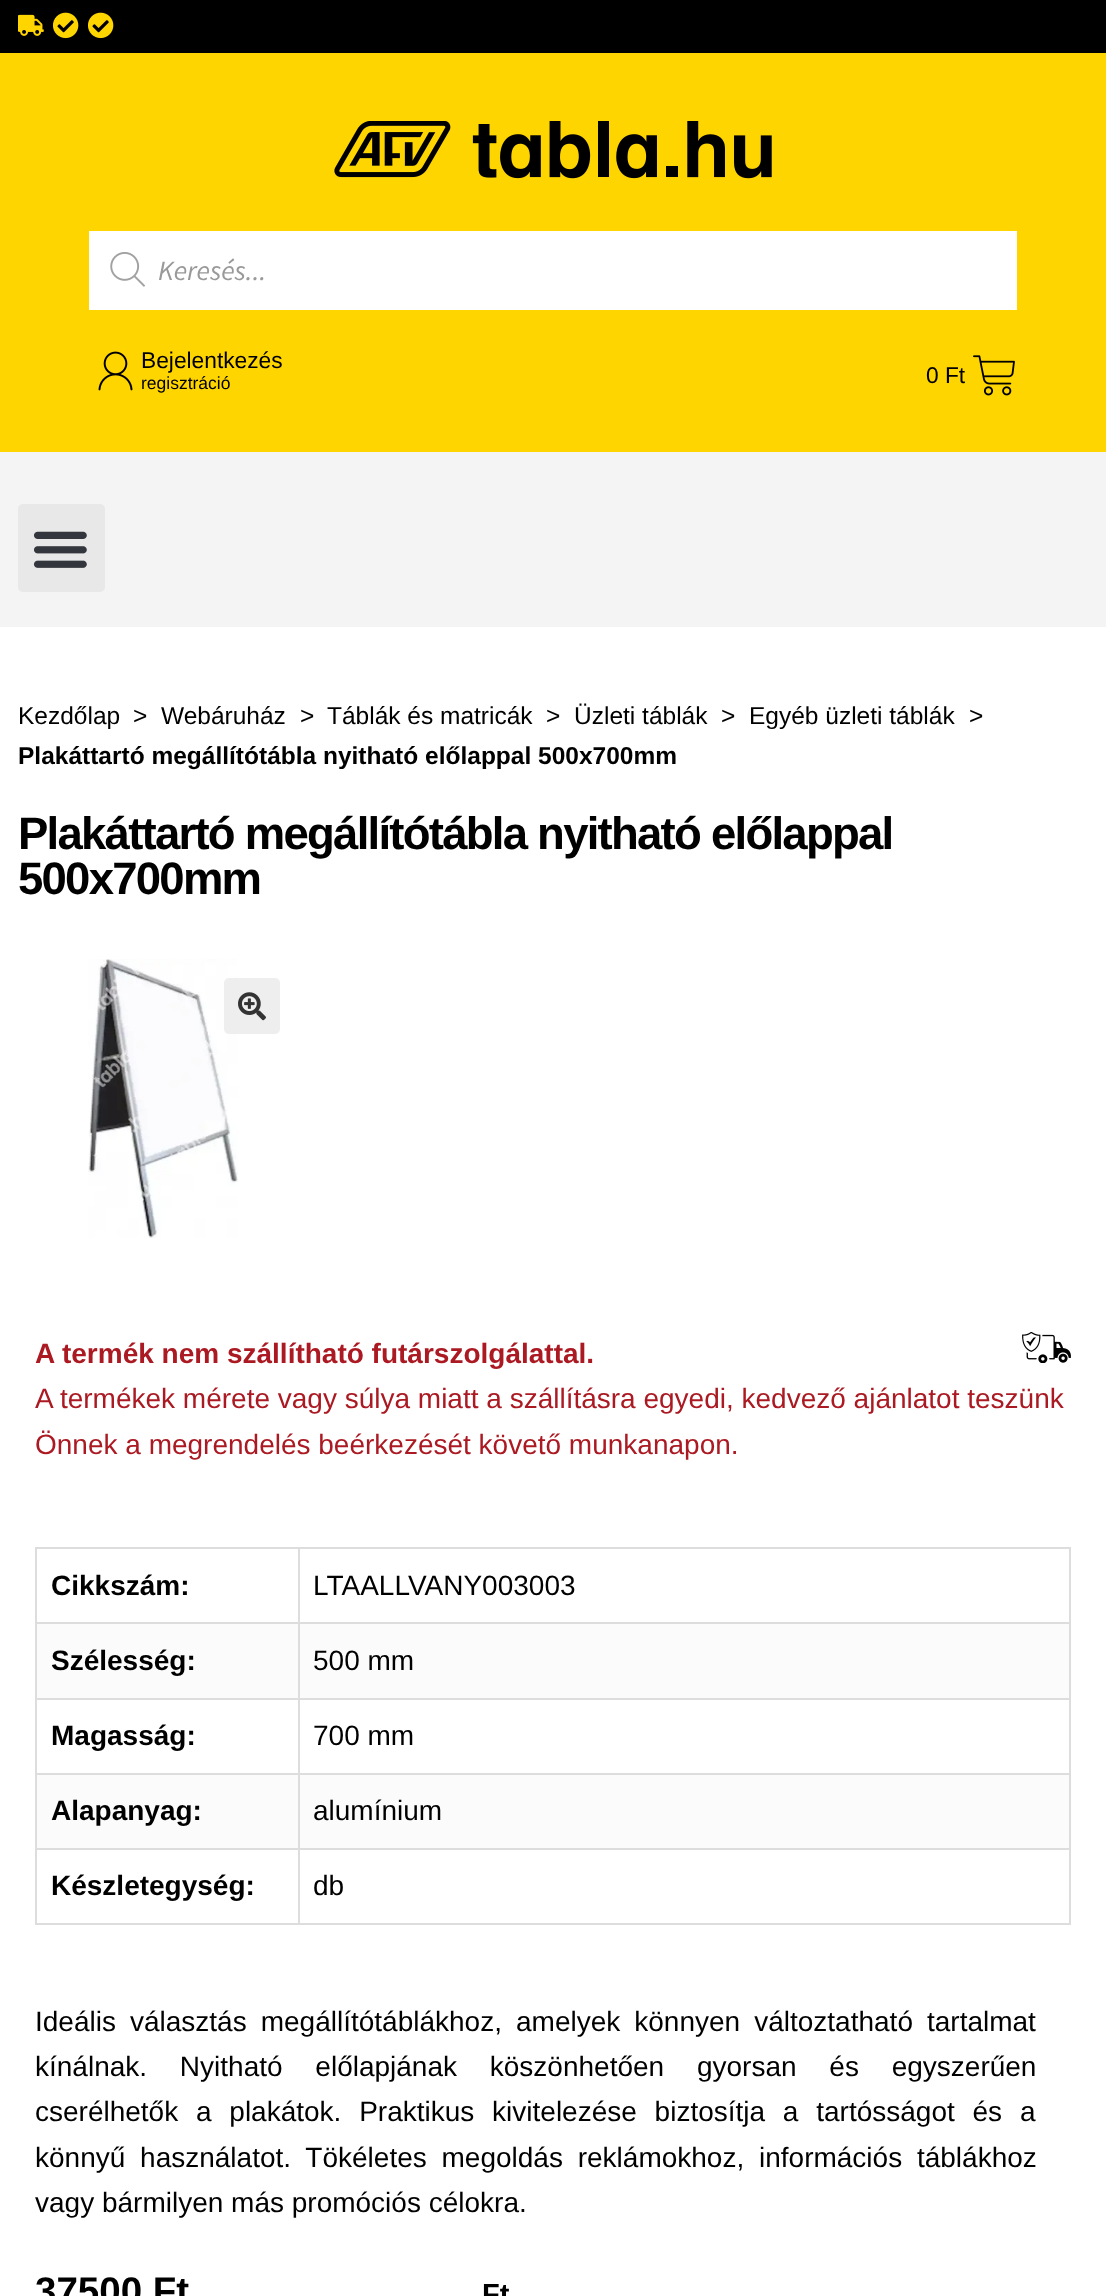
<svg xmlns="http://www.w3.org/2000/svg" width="1106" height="2296">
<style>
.a{font:italic 28px Source Sans Pro;fill:#999}
.b{font:22.75px Liberation Sans;fill:#000}
.c{font:17.5px Liberation Sans;fill:#000}
.d{font:24.5px Liberation Sans;fill:#000}
.e{font:bold 24.5px Liberation Sans;fill:#000}
.f{font:bold 45.5px Liberation Sans;letter-spacing:-1.75px;fill:#000}
.g{font:bold 28px Liberation Sans;fill:#ab1922}
.h{font:28px Liberation Sans;fill:#ab1922}
.i{font:bold 28px Liberation Sans;fill:#000}
.j{font:28px Liberation Sans;fill:#000}
.k{font:bold 38.5px Liberation Sans;fill:#000}
.l{font:bold 29px Liberation Sans;fill:#000}
</style>
<rect width="100%" height="100%" fill="#fff"/>
<path fill="#000" d="M0 0h1106v53H0z"/>
<image href="1.png" x="18" y="14" width="26" height="22"/>
<image href="2.png" x="53" y="12" width="26" height="27"/>
<image href="2.png" x="88" y="12" width="26" height="27"/>
<path fill="#ffd500" d="M0 53h1106v399H0z"/>
<image href="3.png" x="334" y="121" width="438" height="58"/>
<path fill="#fff" d="M89 231h928v79H89z"/>
<image href="4.png" x="110" y="252" width="35" height="35"/>
<image href="5.png" x="98" y="351" width="35" height="40"/>
<image href="6.png" x="973" y="355" width="42" height="41"/>
<path fill="#f4f4f4" d="M0 452h1106v175H0z"/>
<rect fill="#e8e8e8" x="18" y="504" width="87" height="88" rx="5"/>
<image href="7.png" x="33" y="531" width="54" height="37"/>
<image href="8.png" x="88" y="959" width="150" height="279"/>
<rect fill="#eee" x="224" y="978" width="56" height="56" rx="5"/>
<image href="9.png" x="238" y="992" width="28" height="29"/>
<image href="10.png" x="1022" y="1332" width="49" height="31"/>
<path fill="#ddd" d="M35 1547h1036v2H35z"/>
<path fill="#ddd" d="M1069 1547h2v378H1069z"/>
<path fill="#ddd" d="M35 1923h1036v2H35z"/>
<path fill="#ddd" d="M35 1547h2v378H35z"/>
<path fill="#ddd" d="M298 1622h773v2H298z"/>
<path fill="#ddd" d="M298 1698h773v2H298z"/>
<path fill="#ddd" d="M298 1773h773v2H298z"/>
<path fill="#ddd" d="M298 1848h773v2H298z"/>
<path fill="#ddd" d="M298 1848h2v77H298z"/>
<path fill="#ddd" d="M35 1848h264v2H35z"/>
<path fill="#ddd" d="M298 1773h2v77H298z"/>
<path fill="#ddd" d="M35 1773h264v2H35z"/>
<path fill="#ddd" d="M298 1698h2v77H298z"/>
<path fill="#ddd" d="M35 1698h264v2H35z"/>
<path fill="#ddd" d="M298 1622h2v77H298z"/>
<path fill="#ddd" d="M35 1622h264v2H35z"/>
<path fill="#ddd" d="M298 1547h2v77H298z"/>
<path fill="#fbfbfb" d="M37 1624h261v74H37z"/>
<path fill="#fbfbfb" d="M300 1624h769v74H300z"/>
<path fill="#fbfbfb" d="M37 1775h261v73H37z"/>
<path fill="#fbfbfb" d="M300 1775h769v73H300z"/>
<text class="a" x="158" y="280">Keresés...</text>
<text class="b" x="141" y="368">Bejelentkezés</text>
<text class="c" x="141" y="389">regisztráció</text>
<text class="b" x="926" y="383">0 Ft</text>
<text class="d" x="18" y="724">Kezdőlap</text>
<text class="d" x="133" y="724">&gt;</text>
<text class="d" x="161" y="724">Webáruház</text>
<text class="d" x="300" y="724">&gt;</text>
<text class="d" x="327" y="724">Táblák és matricák</text>
<text class="d" x="546" y="724">&gt;</text>
<text class="d" x="574" y="724">Üzleti táblák</text>
<text class="d" x="721" y="724">&gt;</text>
<text class="d" x="749" y="724">Egyéb üzleti táblák</text>
<text class="d" x="969" y="724">&gt;</text>
<text class="e" x="18" y="764">Plakáttartó megállítótábla nyitható előlappal 500x700mm</text>
<text class="f" x="18" y="849">Plakáttartó megállítótábla nyitható előlappal</text>
<text class="f" x="18" y="894">500x700mm</text>
<text class="g" x="35" y="1363">A termék nem szállítható futárszolgálattal.</text>
<text class="h" x="35" y="1408">A termékek mérete vagy súlya miatt a szállításra egyedi, kedvező ajánlatot teszünk</text>
<text class="h" x="35" y="1454">Önnek a megrendelés beérkezését követő munkanapon.</text>
<text class="i" x="51" y="1595">Cikkszám:</text>
<text class="j" x="313" y="1595">LTAALLVANY003003</text>
<text class="i" x="51" y="1670">Szélesség:</text>
<text class="j" x="313" y="1670">500 mm</text>
<text class="i" x="51" y="1745">Magasság:</text>
<text class="j" x="313" y="1745">700 mm</text>
<text class="i" x="51" y="1820">Alapanyag:</text>
<text class="j" x="313" y="1820">alumínium</text>
<text class="i" x="51" y="1895">Készletegység:</text>
<text class="j" x="313" y="1895">db</text>
<text class="j" x="35" y="2031" word-spacing="6.25">Ideális választás megállítótáblákhoz, amelyek könnyen változtatható tartalmat</text>
<text class="j" x="35" y="2076" word-spacing="25">kínálnak. Nyitható előlapjának köszönhetően gyorsan és egyszerűen</text>
<text class="j" x="35" y="2121" word-spacing="10">cserélhetők a plakátok. Praktikus kivitelezése biztosítja a tartósságot és a</text>
<text class="j" x="35" y="2167" word-spacing="7">könnyű használatot. Tökéletes megoldás reklámokhoz, információs táblákhoz</text>
<text class="j" x="35" y="2212">vagy bármilyen más promóciós célokra.</text>
<text class="k" x="35" y="2304">37500 Ft</text>
<text class="l" x="482" y="2304">Ft</text>
</svg>
